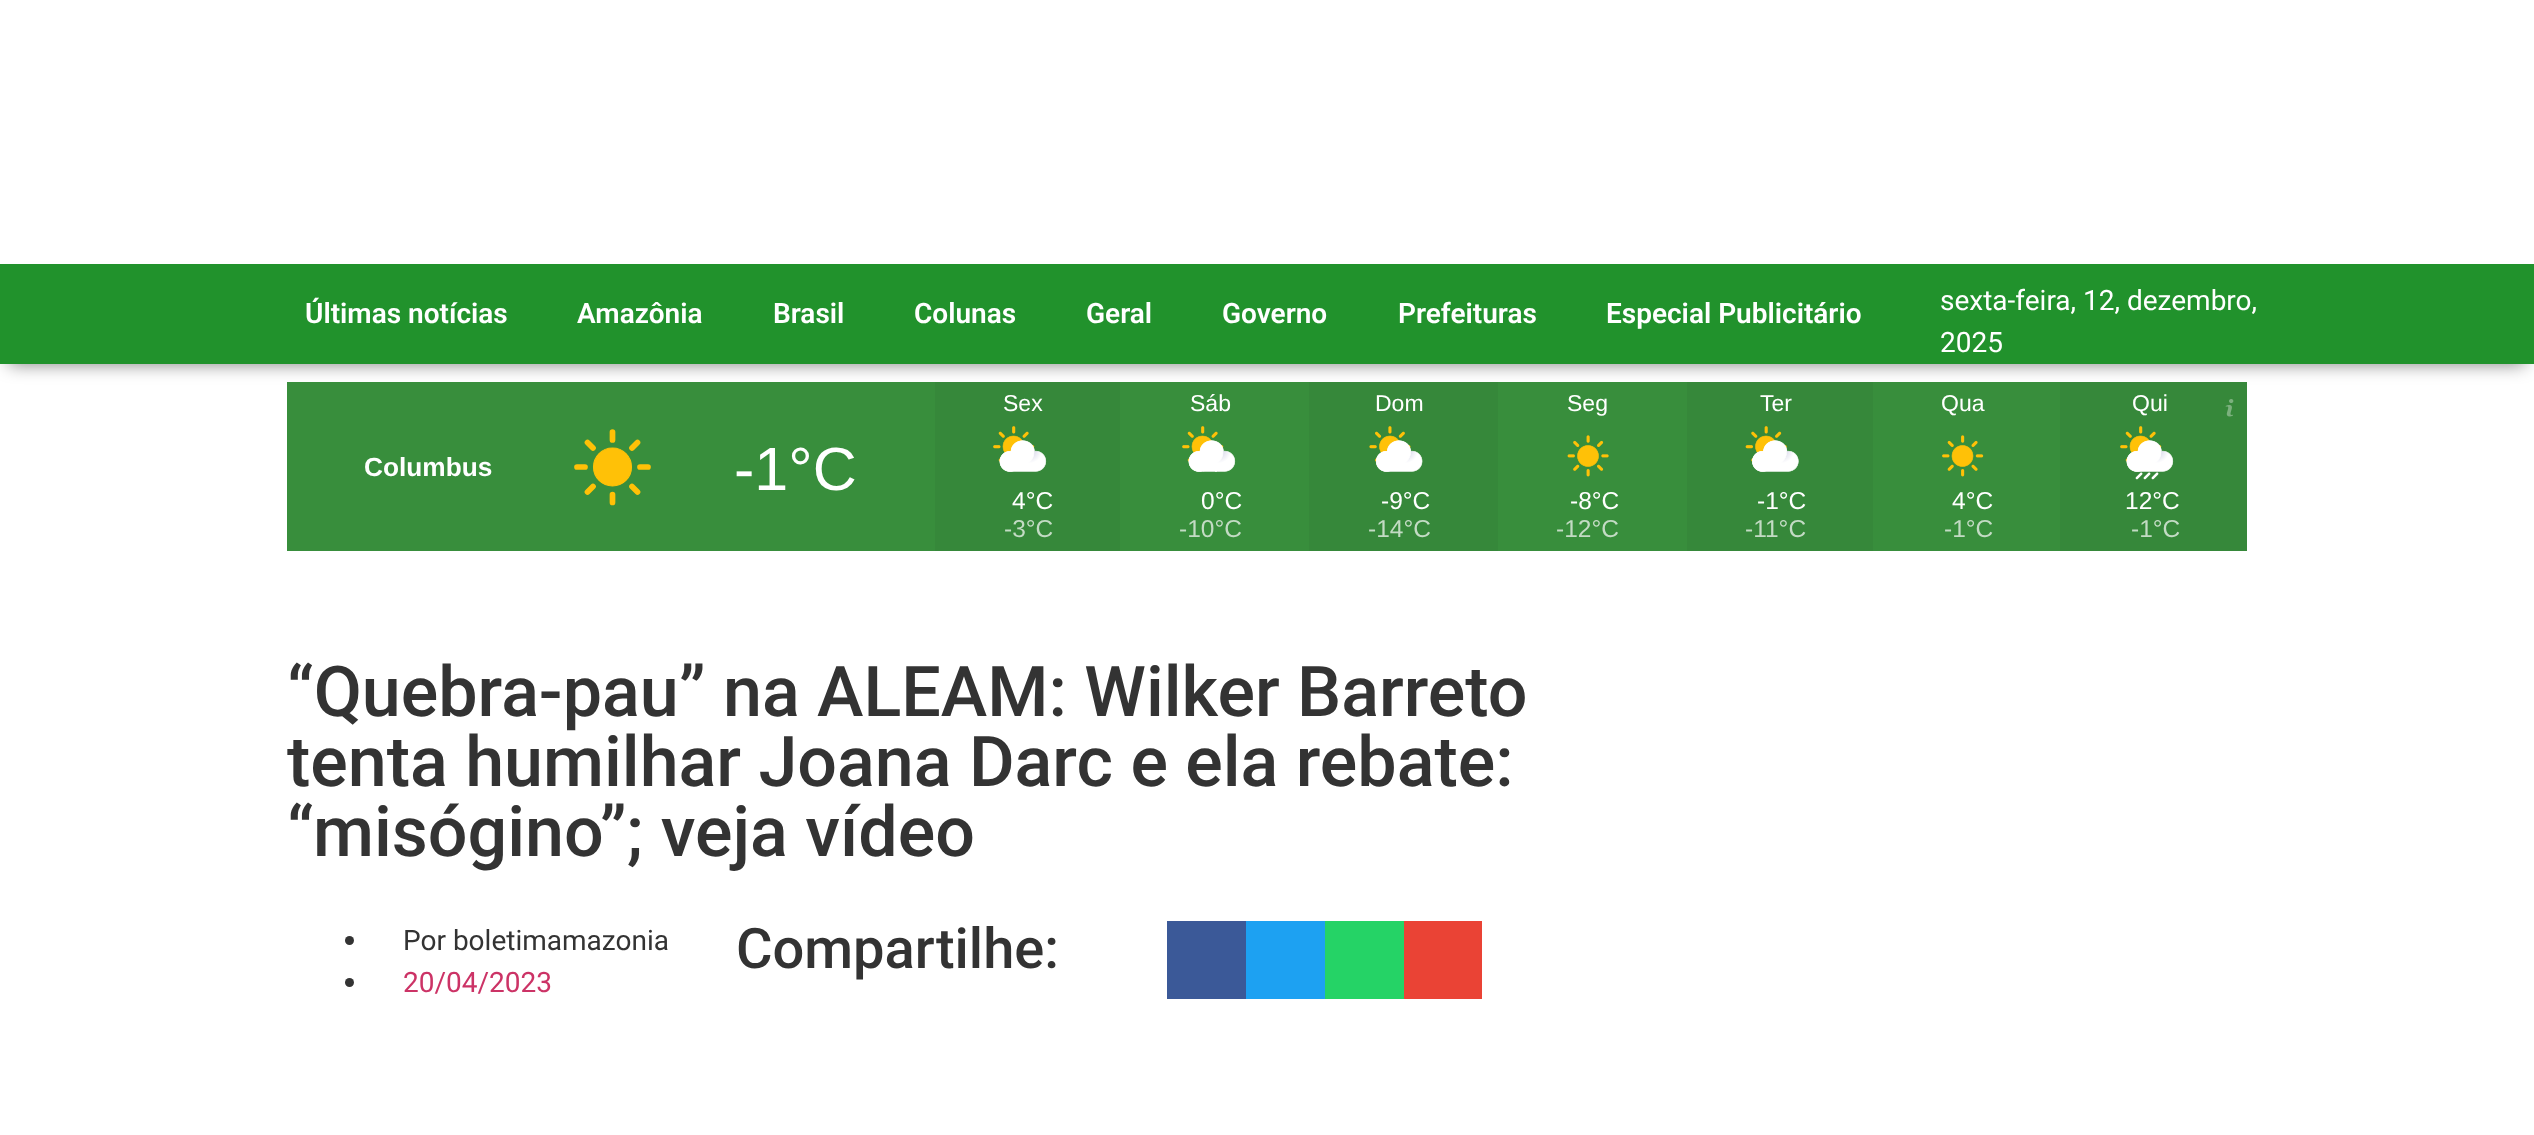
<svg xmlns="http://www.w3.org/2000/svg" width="2534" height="1135">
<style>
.a{font:600 28px Roboto;fill:#fff}
.b{font:28px Roboto;fill:#fff}
.c{font:bold 26.25px Liberation Sans;fill:#fff}
.d{font:61px Liberation Sans;fill:#fff}
.e{font:23px Liberation Sans;fill:#fff}
.f{font:24.5px Liberation Sans;fill:#fff}
.g{font:24.5px Liberation Sans;fill:#c3dbc4}
.h{font:500 70px Roboto;fill:#333}
.i{font:28px Roboto;fill:#333}
.j{font:28px Roboto;fill:#c36}
.k{font:500 56px Roboto;fill:#333}
</style>
<rect width="100%" height="100%" fill="#fff"/>
<path fill="#00000080" filter="blur(9px)" d="M9 282h2516v82H9z"/>
<path fill="#21922c" d="M0 264h2534v100H0z"/>
<path fill="#388e3c" d="M287 382h1773v169H287z"/>
<circle fill="#ffc107" stroke="#ffc107" stroke-width="1.1" cx="612.5" cy="467" r="19"/>
<path fill="none" stroke="#ffc107" stroke-width="5.7" stroke-linecap="round" d="M612.5 494.5v8m-19.5-16l-5.5 5.5m-2.5-25h-8"/>
<path fill="none" stroke="#ffc107" stroke-width="5.7" stroke-linecap="round" d="M593 448l-5.5-5.5m25-2.5v-8m19.5 16l5.5-5.5"/>
<path fill="none" stroke="#ffc107" stroke-width="5.7" stroke-linecap="round" d="M640 467h8m-16 19.5l5.5 5.5"/>
<path fill="#36883a" d="M935 382h185v169H935z"/>
<image href="1.png" x="993" y="426" width="54" height="46"/>
<image href="2.png" x="1182" y="426" width="54" height="46"/>
<path fill="#36883a" d="M1309 382h189v169H1309z"/>
<image href="3.png" x="1369" y="426" width="54" height="46"/>
<image href="4.png" x="1567" y="435" width="42" height="42"/>
<path fill="#36883a" d="M1687 382h186v169H1687z"/>
<image href="5.png" x="1745" y="426" width="54" height="46"/>
<image href="6.png" x="1942" y="435" width="42" height="42"/>
<path fill="#36883a" d="M2060 382h187v169H2060z"/>
<image href="7.png" x="2120" y="426" width="54" height="54"/>
<image href="8.png" x="2225" y="399" width="9" height="18"/>
<circle fill="#333" cx="349.5" cy="940.5" r="4.5"/>
<circle fill="#333" cx="349.5" cy="982.5" r="4.5"/>
<path fill="#3b5998" d="M1167 921h79v78H1167z"/>
<path fill="#1da1f2" d="M1246 921h79v78H1246z"/>
<path fill="#25d366" d="M1325 921h79v78H1325z"/>
<path fill="#ea4335" d="M1404 921h78v78H1404z"/>
<text class="a" x="305" y="323">Últimas notícias</text>
<text class="a" x="577" y="323">Amazônia</text>
<text class="a" x="773" y="323">Brasil</text>
<text class="a" x="914" y="323">Colunas</text>
<text class="a" x="1086" y="323">Geral</text>
<text class="a" x="1222" y="323">Governo</text>
<text class="a" x="1398" y="323">Prefeituras</text>
<text class="a" x="1606" y="323">Especial Publicitário</text>
<text class="b" x="1940" y="310">sexta-feira, 12, dezembro,</text>
<text class="b" x="1940" y="352">2025</text>
<text class="c" x="364" y="476">Columbus</text>
<text class="d" x="734" y="490">-1°C</text>
<text class="e" x="1003" y="411">Sex</text>
<text class="f" x="1012" y="509">4°C</text>
<text class="g" x="1004" y="537">-3°C</text>
<text class="e" x="1190" y="411">Sáb</text>
<text class="f" x="1201" y="509">0°C</text>
<text class="g" x="1179" y="537">-10°C</text>
<text class="e" x="1375" y="411">Dom</text>
<text class="f" x="1381" y="509">-9°C</text>
<text class="g" x="1368" y="537">-14°C</text>
<text class="e" x="1567" y="411">Seg</text>
<text class="f" x="1570" y="509">-8°C</text>
<text class="g" x="1556" y="537">-12°C</text>
<text class="e" x="1760" y="411">Ter</text>
<text class="f" x="1757" y="509">-1°C</text>
<text class="g" x="1745" y="537">-11°C</text>
<text class="e" x="1941" y="411">Qua</text>
<text class="f" x="1952" y="509">4°C</text>
<text class="g" x="1944" y="537">-1°C</text>
<text class="e" x="2132" y="411">Qui</text>
<text class="f" x="2125" y="509">12°C</text>
<text class="g" x="2131" y="537">-1°C</text>
<text class="h" x="287" y="716">“Quebra-pau” na ALEAM: Wilker Barreto</text>
<text class="h" x="287" y="786">tenta humilhar Joana Darc e ela rebate:</text>
<text class="h" x="287" y="856">“misógino”; veja vídeo</text>
<text class="i" x="403" y="950">Por boletimamazonia</text>
<text class="j" x="403" y="992">20/04/2023</text>
<text class="k" x="736" y="968">Compartilhe:</text>
</svg>
